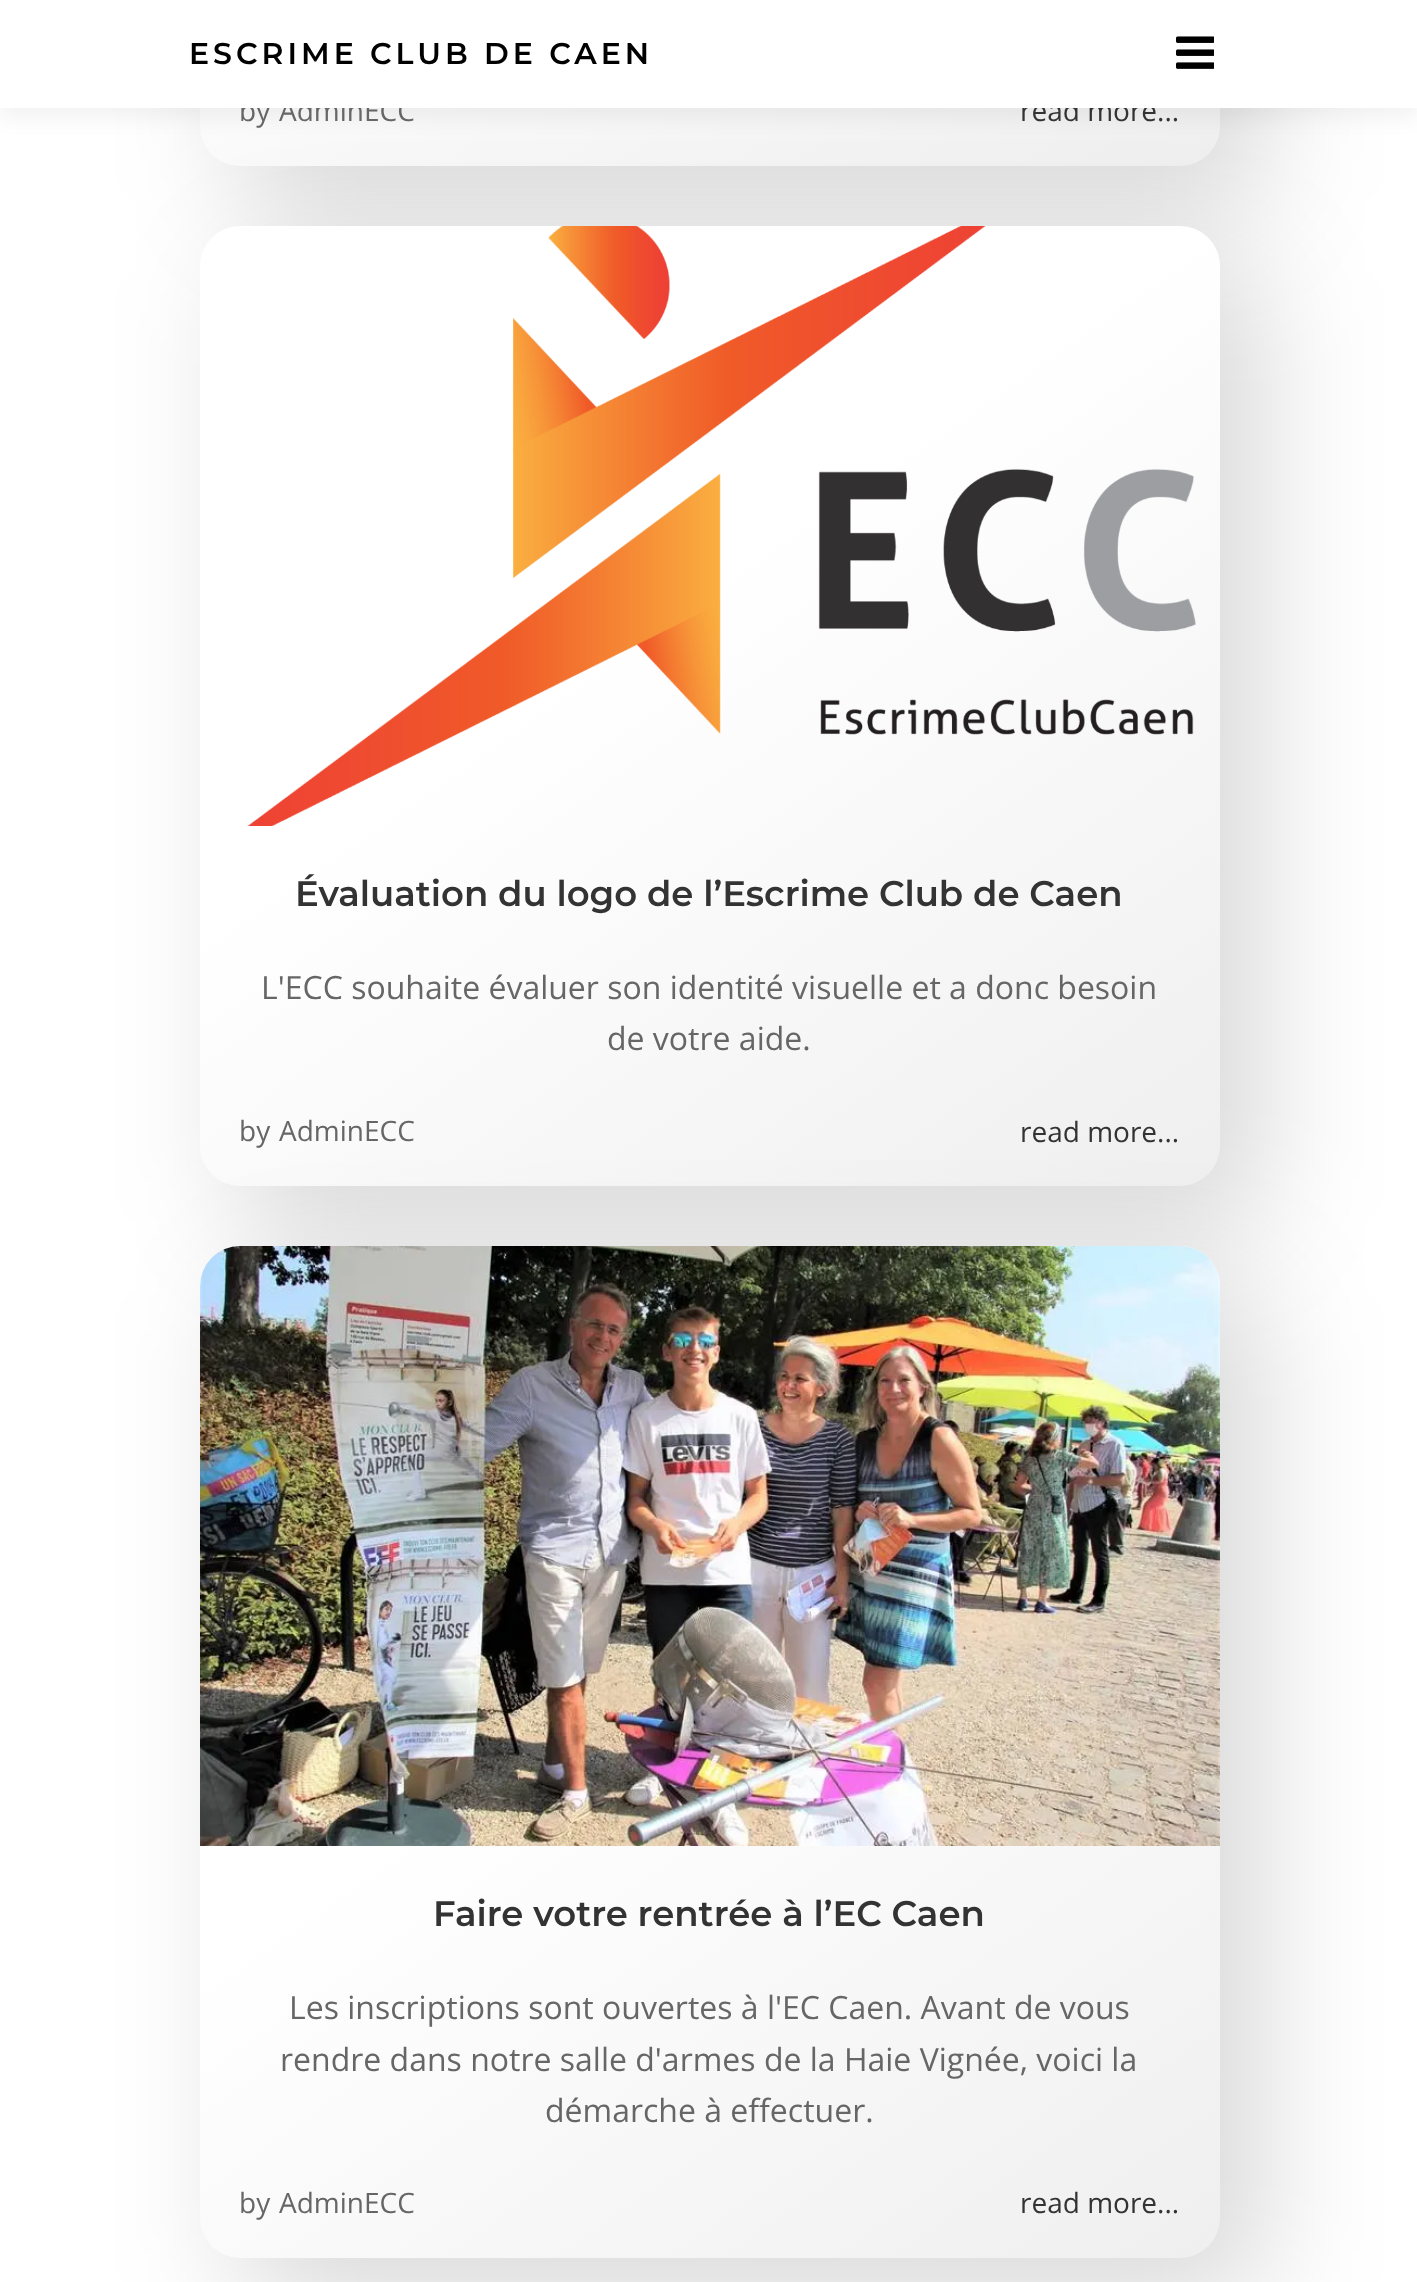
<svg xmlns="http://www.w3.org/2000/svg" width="1417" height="2282">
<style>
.a{font:28px Open Sans;fill:#666}
.b{font:28px Open Sans;fill:#333}
.c{font:600 30px Montserrat;letter-spacing:4px;fill:#000}
.d{font:600 35.5px Montserrat;fill:#333}
.e{font:32px Open Sans;fill:#666}
</style>
<defs>
<linearGradient id="g1" gradientUnits="userSpaceOnUse" x1="291" y1="-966" x2="1129" y2="230"><stop offset="0.42" stop-color="#fff"/><stop offset="1" stop-color="#efefef"/></linearGradient>
<linearGradient id="g2" gradientUnits="userSpaceOnUse" x1="317" y1="144" x2="1103" y2="1268"><stop offset="0.42" stop-color="#fff"/><stop offset="1" stop-color="#efefef"/></linearGradient>
<linearGradient id="g3" gradientUnits="userSpaceOnUse" x1="304" y1="1173" x2="1116" y2="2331"><stop offset="0.42" stop-color="#fff"/><stop offset="1" stop-color="#efefef"/></linearGradient>
</defs>
<rect width="100%" height="100%" fill="#fff"/>
<rect fill="#00000026" filter="blur(60px)" x="236" y="-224" width="1028" height="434" rx="44"/>
<rect fill="url(#g1)" x="200" y="-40" width="1020" height="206" rx="40"/>
<path fill="#0000000d" filter="blur(10px)" d="M0 10h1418v108H0z"/>
<rect fill="#00000026" filter="blur(60px)" x="236" y="262" width="1028" height="968" rx="44"/>
<rect fill="url(#g2)" x="200" y="226" width="1020" height="960" rx="40"/>
<image href="2.png" x="247" y="226" width="949" height="600"/>
<rect fill="#00000026" filter="blur(60px)" x="236" y="1282" width="1028" height="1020" rx="44"/>
<rect fill="url(#g3)" x="200" y="1246" width="1020" height="1012" rx="40"/>
<image href="3.png" x="200" y="1246" width="1020" height="600"/>
<text class="a" x="239" y="121">by</text>
<text class="a" x="279" y="121">AdminECC</text>
<text class="b" x="1020" y="121">read more...</text>
<path fill="#fff" d="M0 0h1417v108H0z"/>
<image href="1.png" x="1176" y="36" width="38" height="33"/>
<text class="c" x="189" y="64">ESCRIME CLUB DE CAEN</text>
<text class="d" x="295" y="906">Évaluation du logo de l’Escrime Club de Caen</text>
<text class="e" x="261" y="999">L'ECC souhaite évaluer son identité visuelle et a donc besoin</text>
<text class="e" x="607" y="1050">de votre aide.</text>
<text class="a" x="239" y="1141">by</text>
<text class="a" x="279" y="1141">AdminECC</text>
<text class="b" x="1020" y="1142">read more...</text>
<text class="d" x="433" y="1926">Faire votre rentrée à l’EC Caen</text>
<text class="e" x="289" y="2019">Les inscriptions sont ouvertes à l'EC Caen. Avant de vous</text>
<text class="e" x="280" y="2071">rendre dans notre salle d'armes de la Haie Vignée, voici la</text>
<text class="e" x="545" y="2122">démarche à effectuer.</text>
<text class="a" x="239" y="2213">by</text>
<text class="a" x="279" y="2213">AdminECC</text>
<text class="b" x="1020" y="2213">read more...</text>
</svg>
